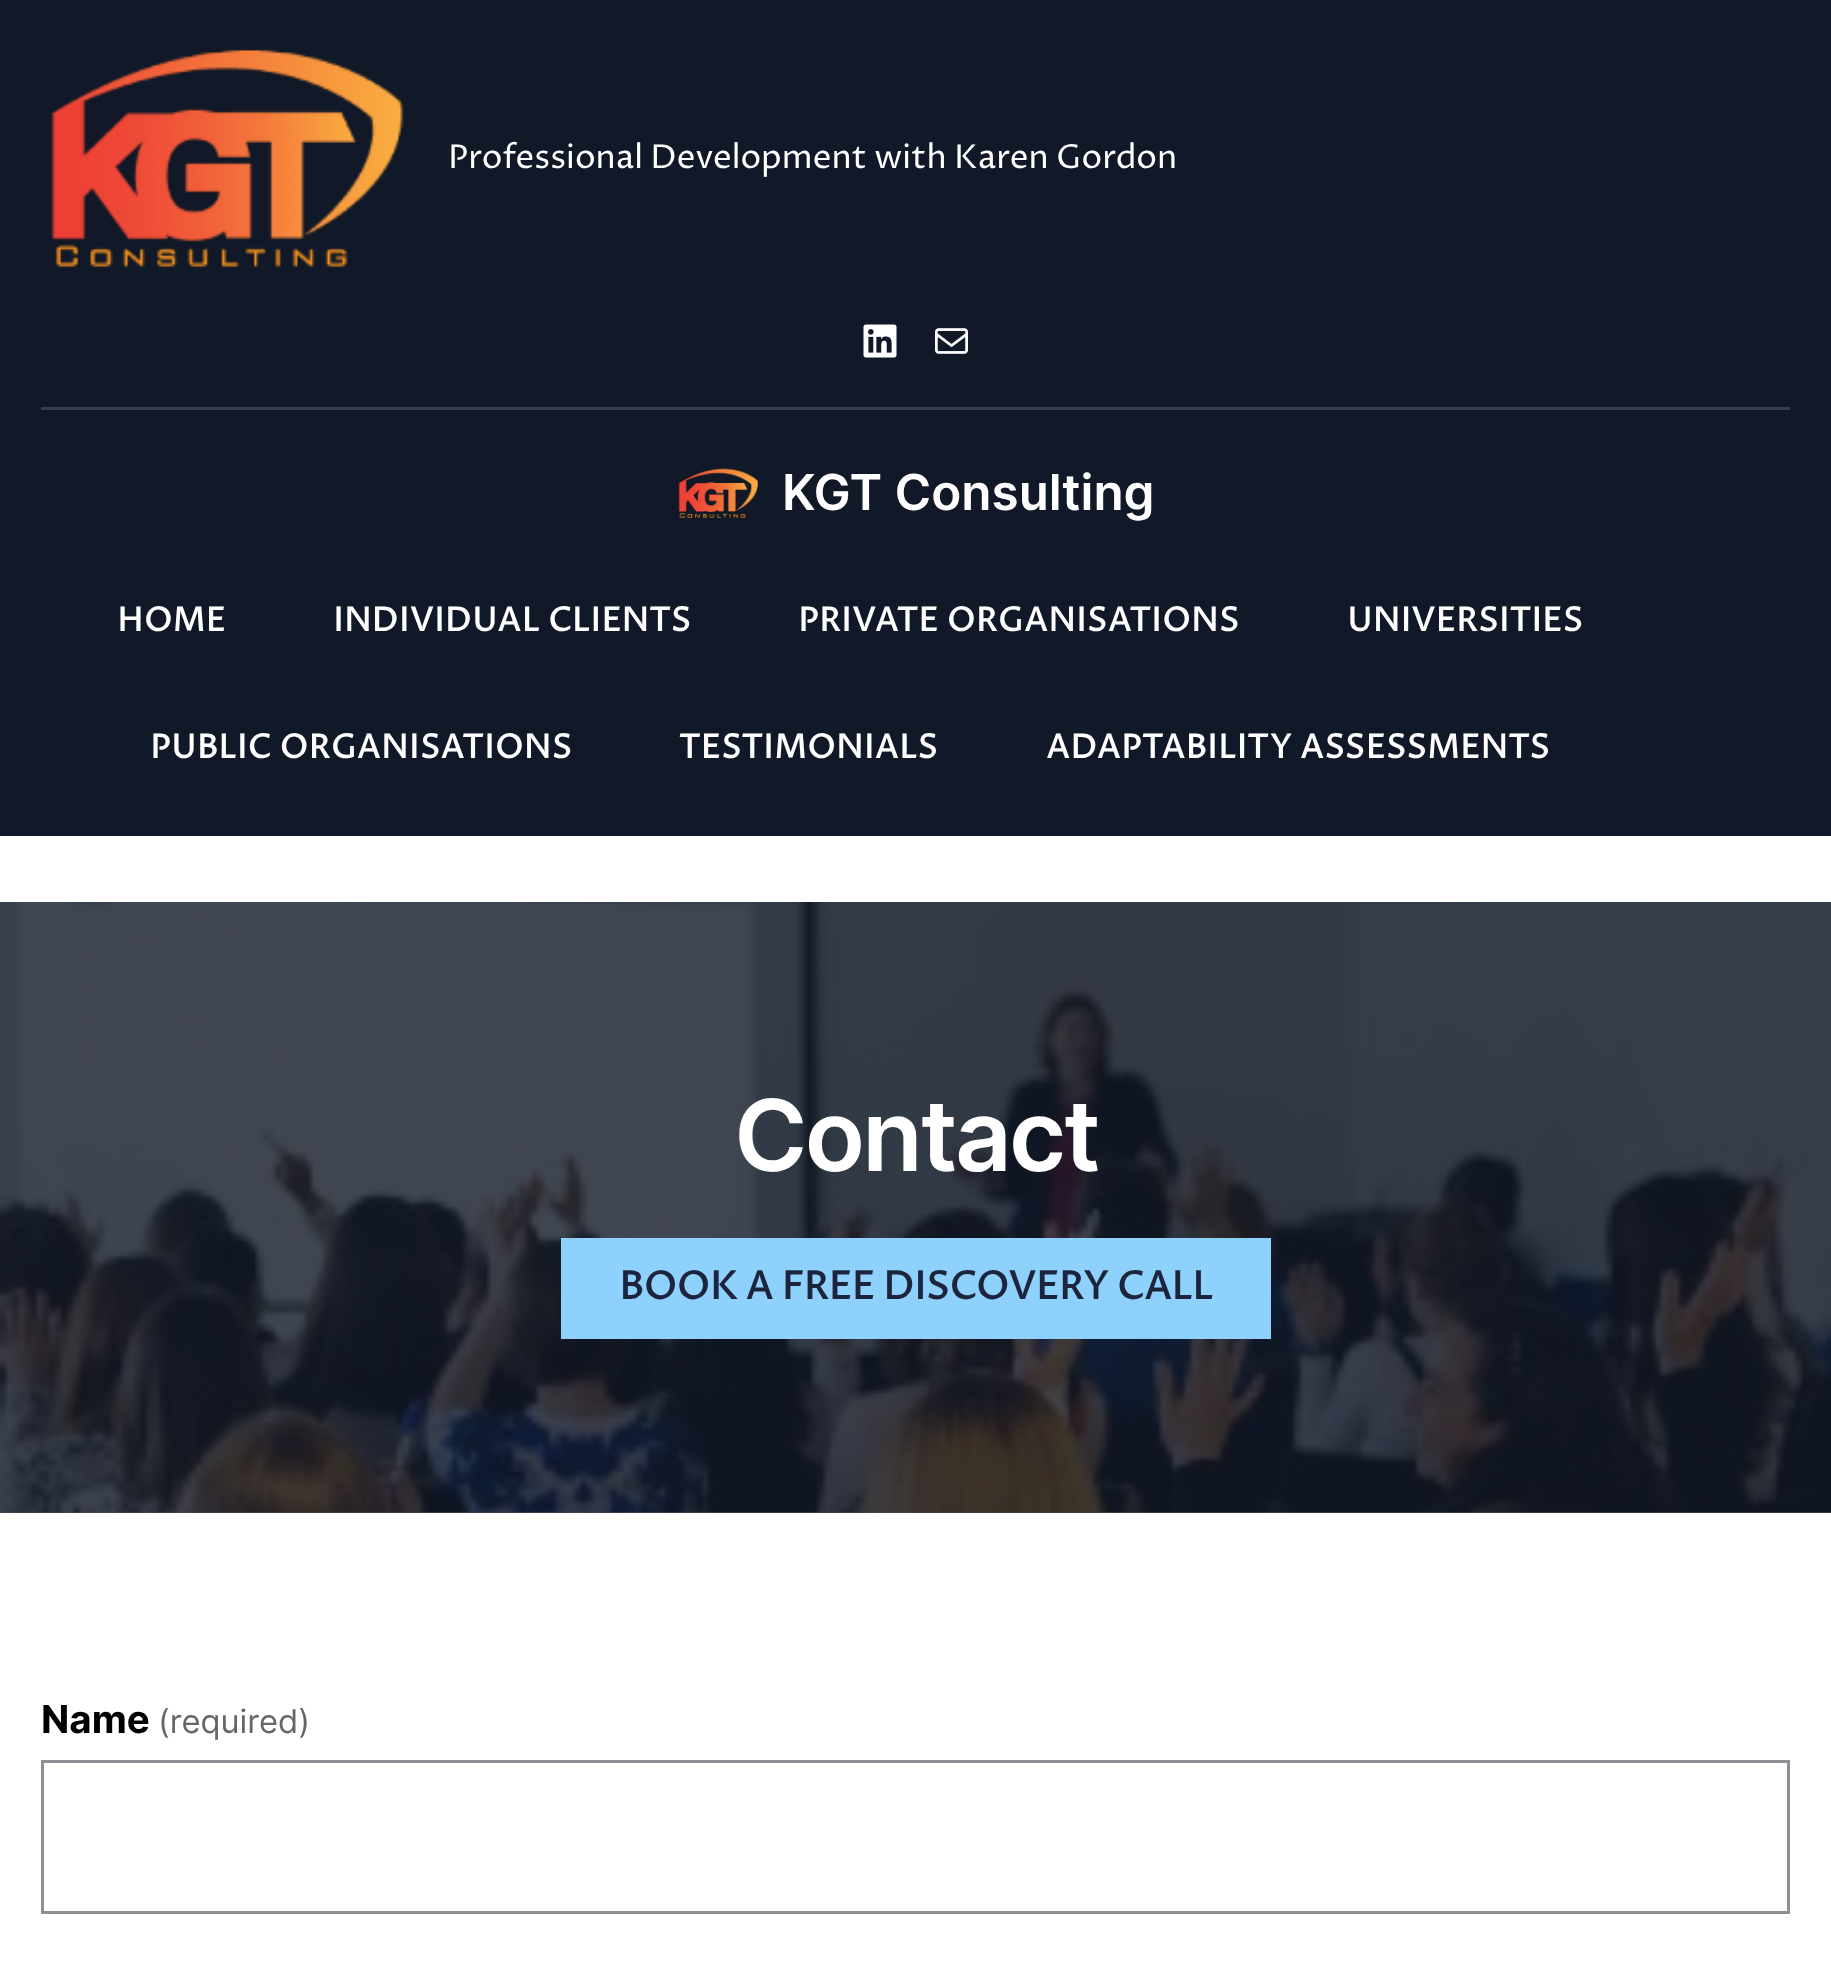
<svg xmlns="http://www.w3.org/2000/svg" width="1831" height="1971">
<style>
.a{font:33px Proza Libre;fill:#fff}
.b{font:600 49.5px Inter;fill:#fff}
.c{font:bold 33px Proza Libre;letter-spacing:0.7px;fill:#fff}
.d{font:600 99px Inter;letter-spacing:-2.75px;fill:#fff}
.e{font:bold 38.5px Proza Libre;fill:#1d243d}
.f{font:bold 38.5px Inter;fill:#000}
.g{font:32.75px Inter;fill:#666}
</style>
<rect width="100%" height="100%" fill="#fff"/>
<path fill="#414652" d="M0 1512h1831v1H0z"/>
<path fill="#111827" d="M0 0h1831v836H0z"/>
<path fill="#373d4a" d="M41 407h1749v3H41z"/>
<image href="1.png" x="51" y="49" width="353" height="219"/>
<image href="2.png" x="863" y="324" width="34" height="34"/>
<image href="3.png" x="935" y="328" width="33" height="26"/>
<image href="4.png" x="678" y="468" width="81" height="50"/>
<image href="5.png" x="0" y="902" width="1831" height="611"/>
<path fill="#8ed1fc" d="M561 1238h710v101H561z"/>
<path fill="none" stroke="#8c8f94" stroke-width="3" d="M42.5 1761.5h1746v151H42.5z"/>
<text class="a" x="448" y="168">Professional Development with Karen Gordon</text>
<text class="b" x="782" y="510">KGT Consulting</text>
<text class="c" x="117" y="631">HOME</text>
<text class="c" x="333" y="631">INDIVIDUAL CLIENTS</text>
<text class="c" x="798" y="631">PRIVATE ORGANISATIONS</text>
<text class="c" x="1347" y="631">UNIVERSITIES</text>
<text class="c" x="150" y="758">PUBLIC ORGANISATIONS</text>
<text class="c" x="679" y="758">TESTIMONIALS</text>
<text class="c" x="1046" y="758">ADAPTABILITY ASSESSMENTS</text>
<text class="d" x="734" y="1171">Contact</text>
<text class="e" x="619" y="1299">BOOK A FREE DISCOVERY CALL</text>
<text class="f" x="41" y="1733">Name</text>
<text class="g" x="158" y="1733">(required)</text>
</svg>
